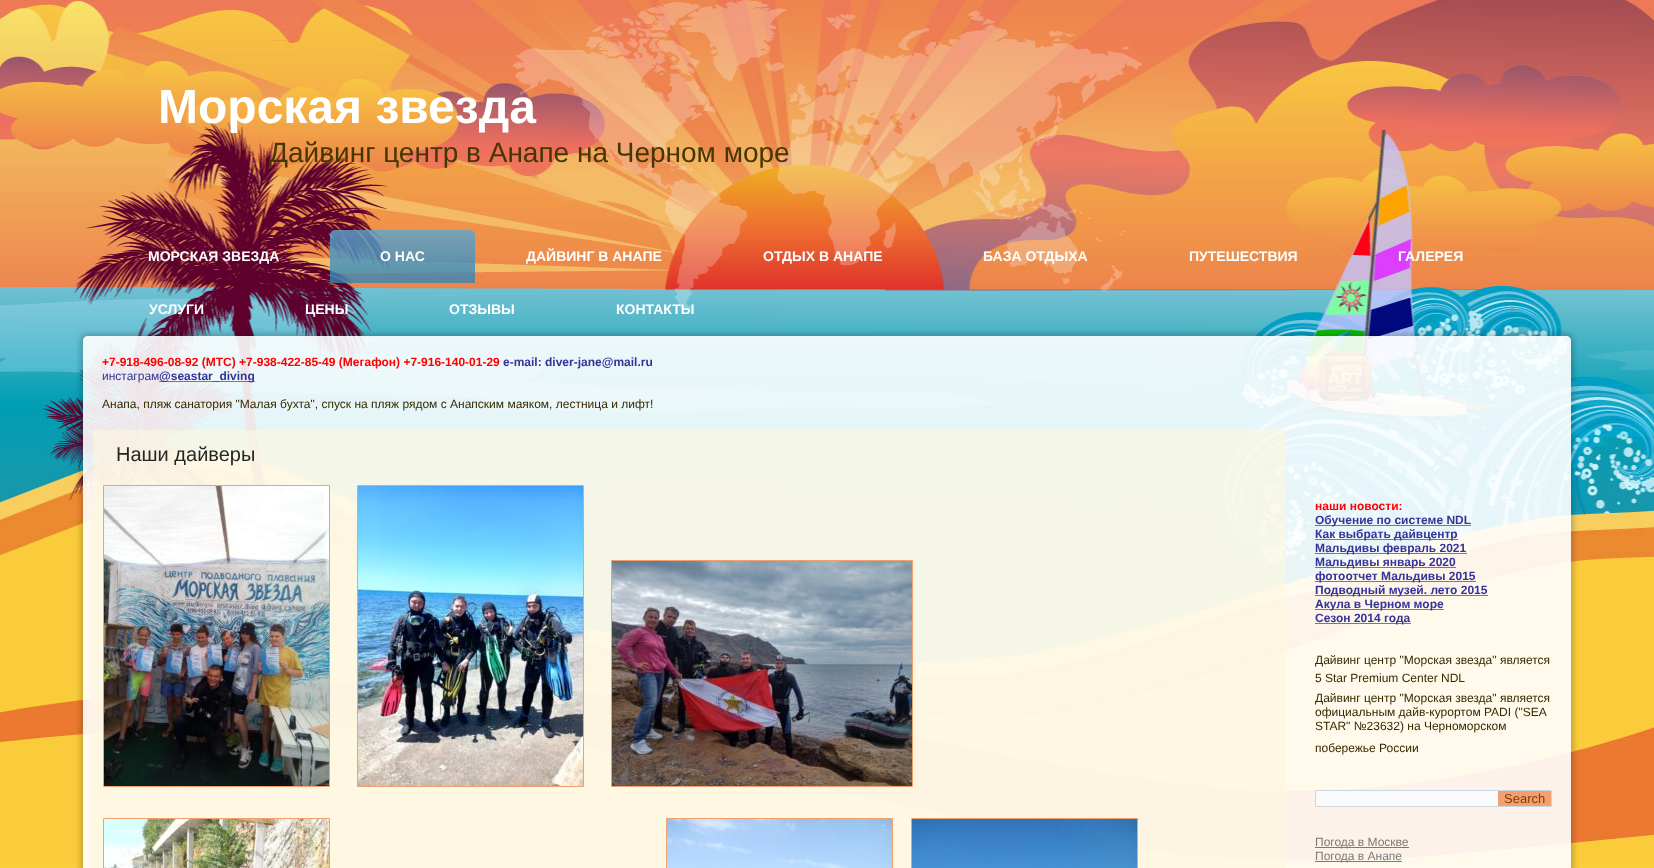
<svg xmlns="http://www.w3.org/2000/svg" width="1654" height="868">
<style>
.a{font:bold 48px Liberation Sans;fill:#fff}
.b{font:28px Liberation Sans;fill:#463601}
.c{font:bold 14px Liberation Sans;fill:#fff}
.d{font:bold 12px Liberation Sans;fill:#f00}
.e{font:bold 12px Liberation Sans;fill:#339}
.f{font:12px Liberation Sans;fill:#339}
.g{font:12px Liberation Sans;fill:#372a01}
.h{font:20px Liberation Sans;fill:#262626}
.i{font:13px Liberation Sans;fill:#833a0c}
.j{font:12px Liberation Sans;fill:#7a7a7a}
</style>
<defs>
<clipPath id="clip1"><path d="M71 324h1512v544h-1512zm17 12h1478c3 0 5 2 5 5v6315h-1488v-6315c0-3 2-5 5-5z" clip-rule="evenodd"/></clipPath>
</defs>
<rect width="100%" height="100%" fill="#face3d"/>
<image href="1.png" x="0" y="0" width="1654" height="863"/>
<g clip-path="url(#clip1)">
<rect fill="#0000002e" filter="blur(2.5px)" x="80" y="333" width="1494" height="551" rx="8"/>
</g>
<path fill="#ffffffe6" d="M88 336h1478c3 0 5 2 5 5v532h-1488v-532c0-3 2-5 5-5z"/>
<path fill="#7a7a7a" d="M159 381h96v1H159z"/>
<rect fill="#fef6dc99" x="93" y="430" width="1193" height="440" rx="2"/>
<path fill="none" stroke="#f2a16e" d="M103.5 485.5h226v301H103.5z"/>
<path fill="none" stroke="#f2a16e" d="M357.5 485.5h226v301H357.5z"/>
<image href="2.png" x="104" y="486" width="225" height="300"/>
<image href="3.png" x="358" y="486" width="225" height="300"/>
<path fill="none" stroke="#f2a16e" d="M611.5 560.5h301v226H611.5z"/>
<image href="4.png" x="612" y="561" width="300" height="225"/>
<path fill="none" stroke="#f2a16e" d="M103.5 818.5h226v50H103.5z"/>
<path fill="none" stroke="#f2a16e" d="M666.5 818.5h226v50H666.5z"/>
<path fill="none" stroke="#f2a16e" d="M911.5 818.5h226v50H911.5z"/>
<image href="5.png" x="104" y="819" width="225" height="49"/>
<image href="6.png" x="667" y="819" width="225" height="49"/>
<image href="7.png" x="912" y="819" width="225" height="49"/>
<path fill="#7a7a7a" d="M1315 525h156v1H1315z"/>
<path fill="#7a7a7a" d="M1315 539h143v1H1315z"/>
<path fill="#7a7a7a" d="M1315 553h152v1H1315z"/>
<path fill="#7a7a7a" d="M1315 567h141v1H1315z"/>
<path fill="#7a7a7a" d="M1315 581h161v1H1315z"/>
<path fill="#7a7a7a" d="M1315 595h173v1H1315z"/>
<path fill="#7a7a7a" d="M1315 609h129v1H1315z"/>
<path fill="#7a7a7a" d="M1315 623h96v1H1315z"/>
<path fill="#f9fafb" d="M1316 791h182v15H1316z"/>
<path fill="none" stroke="#ccd6e0" d="M1315.5 790.5h236v16H1315.5z"/>
<path fill="#f2a16e" d="M1498 791h53v15H1498z"/>
<path fill="#7a7a7a" d="M1315 847h94v1H1315z"/>
<path fill="#7a7a7a" d="M1315 861h87v1H1315z"/>
<text class="a" x="158" y="123">Морская звезда</text>
<text class="b" x="269" y="162">Дайвинг центр в Анапе на Черном море</text>
<text class="c" x="148" y="261">МОРСКАЯ ЗВЕЗДА</text>
<text class="c" x="380" y="261">О НАС</text>
<text class="c" x="526" y="261">ДАЙВИНГ В АНАПЕ</text>
<text class="c" x="763" y="261">ОТДЫХ В АНАПЕ</text>
<text class="c" x="983" y="261">БАЗА ОТДЫХА</text>
<text class="c" x="1189" y="261">ПУТЕШЕСТВИЯ</text>
<text class="c" x="1398" y="261">ГАЛЕРЕЯ</text>
<text class="c" x="149" y="314">УСЛУГИ</text>
<text class="c" x="305" y="314">ЦЕНЫ</text>
<text class="c" x="449" y="314">ОТЗЫВЫ</text>
<text class="c" x="616" y="314">КОНТАКТЫ</text>
<text class="d" x="102" y="366">+7-918-496-08-92 (МТС) +7-938-422-85-49 (Мегафон) +7-916-140-01-29</text>
<text class="e" x="503" y="366">e-mail: diver-jane@mail.ru</text>
<text class="f" x="102" y="380">инстаграм</text>
<text class="e" x="159" y="380">@seastar_diving</text>
<text class="g" x="102" y="408">Анапа, пляж санатория "Малая бухта", спуск на пляж рядом с Анапским маяком, лестница и лифт!</text>
<text class="h" x="116" y="461">Наши дайверы</text>
<text class="d" x="1315" y="510">наши новости:</text>
<text class="e" x="1315" y="524">Обучение по системе NDL</text>
<text class="e" x="1315" y="538">Как выбрать дайвцентр</text>
<text class="e" x="1315" y="552">Мальдивы февраль 2021</text>
<text class="e" x="1315" y="566">Мальдивы январь 2020</text>
<text class="e" x="1315" y="580">фотоотчет Мальдивы 2015</text>
<text class="e" x="1315" y="594">Подводный музей. лето 2015</text>
<text class="e" x="1315" y="608">Акула в Черном море</text>
<text class="e" x="1315" y="622">Сезон 2014 года</text>
<text class="g" x="1315" y="664">Дайвинг центр "Морская звезда" является</text>
<text class="g" x="1315" y="682">5 Star Premium Center NDL</text>
<text class="g" x="1315" y="702">Дайвинг центр "Морская звезда" является</text>
<text class="g" x="1315" y="716">официальным дайв-курортом PADI ("SEA</text>
<text class="g" x="1315" y="730">STAR" №23632) на Черноморском</text>
<text class="g" x="1315" y="752">побережье России</text>
<text class="i" x="1504" y="803">Search</text>
<text class="j" x="1315" y="846">Погода в Москве</text>
<text class="j" x="1315" y="860">Погода в Анапе</text>
</svg>
